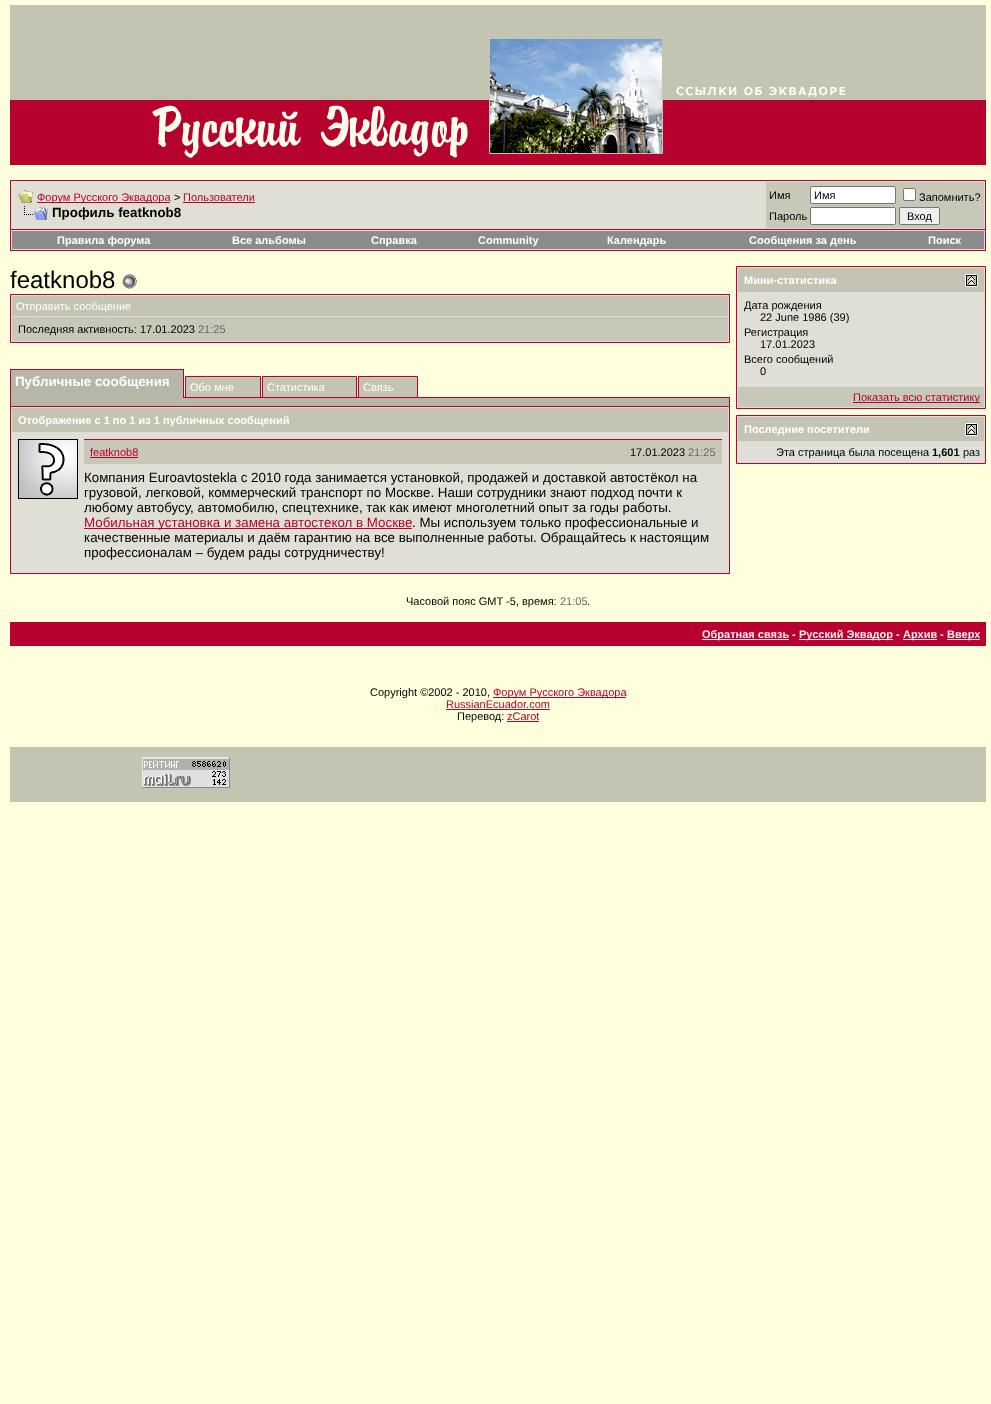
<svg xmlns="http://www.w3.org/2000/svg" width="991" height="1404">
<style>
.a{font:11px Liberation Sans;fill:#b7022f}
.b{font:11px Liberation Sans;fill:#000}
.c{font:bold 13.35px Liberation Sans;fill:#000}
.d{font:bold 11px Liberation Sans;fill:#fff}
.e{font:24px Liberation Sans;fill:#000}
.f{font:11px Liberation Sans;fill:#fff}
.g{font:11px Liberation Sans;fill:#696969}
.h{font:bold 13.35px Liberation Sans;fill:#fff}
.i{font:13.35px Liberation Sans;fill:#000}
.j{font:13.35px Liberation Sans;fill:#b7022f}
.k{font:bold 11px Liberation Sans;fill:#000}
.l{font:bold 11px Liberation Sans;fill:#eee}
</style>
<rect width="100%" height="100%" fill="#ffffde"/>
<path fill="#c4c4b3" d="M10 5h976v95H10z"/>
<image href="1.png" x="489" y="38" width="174" height="116"/>
<image href="2.png" x="676" y="86" width="170" height="11"/>
<path fill="#b7022f" d="M10 100h479v65H10z"/>
<image href="3.png" x="152" y="105" width="316" height="53"/>
<path fill="#b7022f" d="M663 100h215v54H663z"/>
<path fill="#b7022f" d="M489 154h389v11H489z"/>
<path fill="#b7022f" d="M878 100h108v65H878z"/>
<path fill="#ddd" stroke="#b7022f" d="M10.5 180.5h975v49H10.5z"/>
<path fill="#dfdfd5" d="M12 182h753v46H12z"/>
<image href="4.png" x="18" y="190" width="15" height="13"/>
<path fill="#b7022f" d="M37 202h133v1H37z"/>
<path fill="#b7022f" d="M183 202h72v1H183z"/>
<image href="5.png" x="24" y="206" width="24" height="14"/>
<path fill="#c8c8b8" d="M766 182h218v46H766z"/>
<rect fill="#fff" stroke="#767676" x="810.5" y="186.5" width="85" height="17" rx="1.5"/>
<rect fill="#fff" stroke="#767676" x="903.5" y="188.5" width="12" height="12" rx="1.5"/>
<rect fill="#fff" stroke="#767676" x="810.5" y="207.5" width="85" height="17" rx="1.5"/>
<rect fill="#efefef" stroke="#767676" x="899.5" y="207.5" width="40" height="17" rx="1.5"/>
<path fill="#ddd" d="M11 230h974v20H11z"/>
<path fill="#b7022f" d="M985 230h1v21H985z"/>
<path fill="#b7022f" d="M10 250h976v1H10z"/>
<path fill="#b7022f" d="M10 230h1v21H10z"/>
<path fill="#8b8b8b" d="M12 231h972v18H12z"/>
<image href="6.png" x="122" y="274" width="15" height="15"/>
<path fill="#ddd" stroke="#b7022f" d="M10.5 294.5h719v48H10.5z"/>
<path fill="#c4c4b3" d="M12 296h716v20H12z"/>
<path fill="#c8c8b8" d="M12 317h716v24H12z"/>
<path fill="#b6b7a9" d="M11 370h172v28H11z"/>
<path fill="#b7022f" d="M10 369h174v1H10z"/>
<path fill="#b7022f" d="M183 369h1v29H183z"/>
<path fill="#b7022f" d="M10 397h1v9H10z"/>
<path fill="#b7022f" d="M10 369h1v29H10z"/>
<path fill="#b7022f" d="M184 397h546v1H184z"/>
<path fill="#c4c4b3" stroke="#b7022f" d="M185.5 376.5h75v21H185.5z"/>
<path fill="#c4c4b3" stroke="#b7022f" d="M262.5 376.5h94v21H262.5z"/>
<path fill="#c4c4b3" stroke="#b7022f" d="M358.5 376.5h59v21H358.5z"/>
<path fill="#b6b7a9" d="M11 398h718v8H11z"/>
<path fill="#b7022f" d="M729 397h1v9H729z"/>
<path fill="#ddd" stroke="#b7022f" d="M10.5 406.5h719v167H10.5z"/>
<path fill="#c4c4b3" d="M12 408h716v24H12z"/>
<path fill="#dfdfd5" d="M12 433h716v139H12z"/>
<image href="7.png" x="18" y="439" width="60" height="60"/>
<path fill="#b7022f" d="M84 439h638v1H84z"/>
<path fill="#c8c8b8" d="M84 440h638v24H84z"/>
<path fill="#b7022f" d="M90 457h48v1H90z"/>
<path fill="#b7022f" d="M84 528h328v1H84z"/>
<path fill="#ddd" stroke="#b7022f" d="M736.5 266.5h249v142H736.5z"/>
<path fill="#c4c4b3" d="M738 268h246v24H738z"/>
<image href="8.png" x="965" y="274" width="13" height="13"/>
<path fill="#dfdfd5" d="M738 293h246v93H738z"/>
<path fill="#c8c8b8" d="M738 387h246v20H738z"/>
<path fill="#b7022f" d="M853 402h127v1H853z"/>
<path fill="#ddd" stroke="#b7022f" d="M736.5 415.5h249v48H736.5z"/>
<path fill="#c4c4b3" d="M738 417h246v24H738z"/>
<image href="8.png" x="965" y="423" width="13" height="13"/>
<path fill="#dfdfd5" d="M738 442h246v20H738z"/>
<path fill="#b7022f" d="M10 622h976v24H10z"/>
<path fill="#eee" d="M702 639h87v1H702z"/>
<path fill="#eee" d="M799 639h94v1H799z"/>
<path fill="#eee" d="M903 639h34v1H903z"/>
<path fill="#eee" d="M947 639h33v1H947z"/>
<path fill="#b7022f" d="M493 697h133v1H493z"/>
<path fill="#b7022f" d="M446 709h104v1H446z"/>
<path fill="#b7022f" d="M507 721h32v1H507z"/>
<path fill="#c4c4b3" d="M10 747h976v55H10z"/>
<image href="9.png" x="142" y="757" width="88" height="31"/>
<text class="a" x="37" y="201">Форум Русского Эквадора</text>
<text class="b" x="174" y="201">&gt;</text>
<text class="a" x="183" y="201">Пользователи</text>
<text class="c" x="52" y="217">Профиль featknob8</text>
<text class="b" x="769" y="199">Имя</text>
<text class="b" x="814" y="199">Имя</text>
<text class="b" x="919" y="201">Запомнить?</text>
<text class="b" x="769" y="220">Пароль</text>
<text class="b" x="907" y="220">Вход</text>
<text class="d" x="57" y="244">Правила форума</text>
<text class="d" x="232" y="244">Все альбомы</text>
<text class="d" x="371" y="244">Справка</text>
<text class="d" x="478" y="244">Community</text>
<text class="d" x="607" y="244">Календарь</text>
<text class="d" x="749" y="244">Сообщения за день</text>
<text class="d" x="928" y="244">Поиск</text>
<text class="e" x="10" y="288">featknob8</text>
<text class="f" x="16" y="310">Отправить сообщение</text>
<text class="b" x="18" y="333">Последняя активность: 17.01.2023</text>
<text class="g" x="198" y="333">21:25</text>
<text class="h" x="15" y="386">Публичные сообщения</text>
<text class="f" x="190" y="391">Обо мне</text>
<text class="f" x="267" y="391">Статистика</text>
<text class="f" x="363" y="391">Связь</text>
<text class="d" x="18" y="424">Отображение с 1 по 1 из 1 публичных сообщений</text>
<text class="a" x="90" y="456">featknob8</text>
<text class="b" x="630" y="456">17.01.2023</text>
<text class="g" x="688" y="456">21:25</text>
<text class="i" x="84" y="482">Компания Euroavtostekla с 2010 года занимается установкой, продажей и доставкой автостёкол на</text>
<text class="i" x="84" y="497">грузовой, легковой, коммерческий транспорт по Москве. Наши сотрудники знают подход почти к</text>
<text class="i" x="84" y="512">любому автобусу, автомобилю, спецтехнике, так как имеют многолетний опыт за годы работы.</text>
<text class="j" x="84" y="527">Мобильная установка и замена автостекол в Москве</text>
<text class="i" x="412" y="527">. Мы используем только профессиональные и</text>
<text class="i" x="84" y="542">качественные материалы и даём гарантию на все выполненные работы. Обращайтесь к настоящим</text>
<text class="i" x="84" y="557">профессионалам – будем рады сотрудничеству!</text>
<text class="d" x="744" y="284">Мини-статистика</text>
<text class="b" x="744" y="309">Дата рождения</text>
<text class="b" x="760" y="321">22 June 1986 (39)</text>
<text class="b" x="744" y="336">Регистрация</text>
<text class="b" x="760" y="348">17.01.2023</text>
<text class="b" x="744" y="363">Всего сообщений</text>
<text class="b" x="760" y="375">0</text>
<text class="a" x="853" y="401">Показать всю статистику</text>
<text class="d" x="744" y="433">Последние посетители</text>
<text class="b" x="776" y="456">Эта страница была посещена</text>
<text class="k" x="932" y="456">1,601</text>
<text class="b" x="963" y="456">раз</text>
<text class="b" x="406" y="605">Часовой пояс GMT -5, время:</text>
<text class="g" x="560" y="605">21:05</text>
<text class="b" x="587" y="605">.</text>
<text class="l" x="702" y="638">Обратная связь</text>
<text class="d" x="792" y="638">-</text>
<text class="l" x="799" y="638">Русский Эквадор</text>
<text class="d" x="896" y="638">-</text>
<text class="l" x="903" y="638">Архив</text>
<text class="d" x="940" y="638">-</text>
<text class="l" x="947" y="638">Вверх</text>
<text class="b" x="370" y="696">Copyright ©2002 - 2010,</text>
<text class="a" x="493" y="696">Форум Русского Эквадора</text>
<text class="a" x="446" y="708">RussianEcuador.com</text>
<text class="b" x="457" y="720">Перевод:</text>
<text class="a" x="507" y="720">zCarot</text>
</svg>
